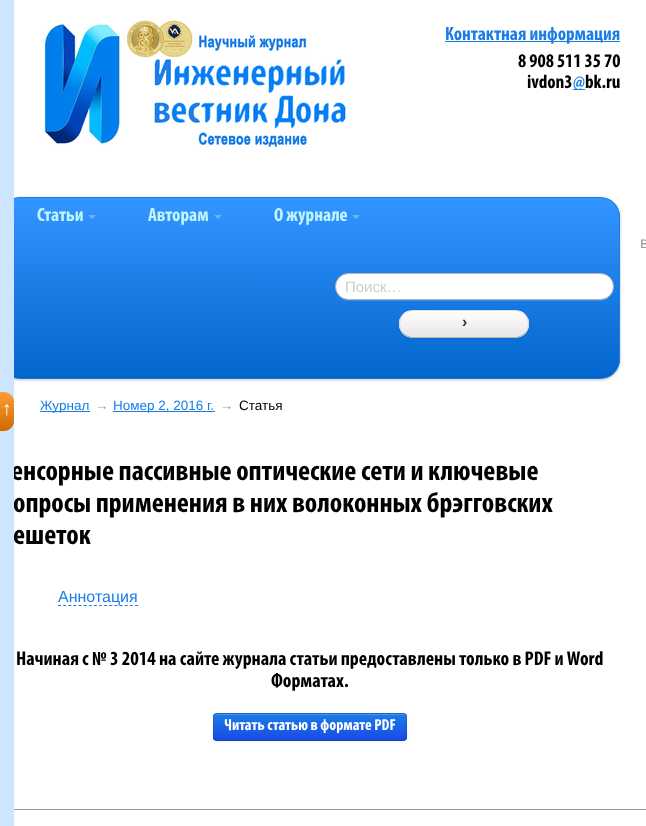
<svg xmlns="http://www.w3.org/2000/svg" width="646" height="826">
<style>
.a{font:bold 19.25px Myriad;fill:#1a7de6}
.b{font:bold 19.25px Myriad;fill:#000}
.c{font:bold 19.25px Myriad;fill:#c0f5ff}
.d{font:15px Liberation Sans;fill:#ccc}
.e{font:bold 16px Liberation Sans;fill:#333}
.f{font:13.5px Liberation Sans;fill:#1a7de6}
.g{font:13.5px Liberation Sans;fill:#999}
.h{font:13.5px Liberation Sans;fill:#000}
.i{font:bold 28.75px Myriad;fill:#000}
.j{font:bold 19.25px Liberation Sans;fill:#fff}
.k{font:16px Liberation Sans;fill:#1a7de6}
.l{font:bold 20px Myriad;fill:#000}
.m{font:bold 16px Myriad;fill:#fff}
.n{font:16px Liberation Sans;fill:#999}
</style>
<defs>
<clipPath id="clip1"><rect y="197" width="620" height="182" rx="20"/></clipPath>
<linearGradient id="g1" gradientUnits="userSpaceOnUse" x1="310" y1="198" x2="310" y2="378"><stop offset="0" stop-color="#3395ff"/><stop offset="1" stop-color="#0266ce"/></linearGradient>
<clipPath id="clip2"><rect x="399" y="310" width="130" height="28" rx="14"/></clipPath>
<linearGradient id="g2" gradientUnits="userSpaceOnUse" x1="464" y1="311" x2="464" y2="337"><stop offset="0" stop-color="#fff"/><stop offset="1" stop-color="#e6e6e6"/></linearGradient>
<clipPath id="clip3"><rect x="213" y="713" width="194" height="28" rx="4"/></clipPath>
<linearGradient id="g3" gradientUnits="userSpaceOnUse" x1="310" y1="714" x2="310" y2="740"><stop offset="0" stop-color="#1a7de6"/><stop offset="1" stop-color="#1a4ae6"/></linearGradient>
<linearGradient id="g4" gradientUnits="userSpaceOnUse" x1="7" y1="392" x2="7" y2="431"><stop offset="0" stop-color="#ff9d33"/><stop offset="1" stop-color="#ce6a02"/></linearGradient>
</defs>
<rect width="100%" height="100%" fill="#fff"/>
<image href="1.png" x="40" y="20" width="306" height="127"/>
<path fill="#1a7de6" d="M445 41h175v1H445z"/>
<path fill="#1a7de6" d="M573 89h12v1H573z"/>
<rect fill="#00000040" filter="blur(1.5px)" y="198" width="620" height="182" rx="20"/>
<g clip-path="url(#clip1)">
<path fill="url(#g1)" d="M14 198h606v180H14z"/>
</g>
<path fill="#0000001a" d="M1 358v1c0 10 9 19 19 19h580c10 0 19-9 19-19v-1c0 10-9 19-19 19h-580c-10 0-19-9-19-19z"/>
<rect fill="none" stroke="#1a7de6" x="0.5" y="197.5" width="619" height="181" rx="19.5"/>
<path fill="#6db1fb" d="M88 215h8l-4 4z"/>
<path fill="#6db1fb" d="M214 215h8l-4 4z"/>
<path fill="#6db1fb" d="M352 215h8l-4 4z"/>
<path fill="#3a8ee7" d="M335 287c0 8 6 14 13 14h252c8 0 14-6 14-14c0 7-6 13-14 13h-252c-7 0-13-6-13-13z"/>
<rect fill="#fff" stroke="#b3b3b3" x="335.5" y="273.5" width="278" height="26" rx="13"/>
<rect fill="#0000000d" filter="blur(1px)" x="399" y="311" width="130" height="28" rx="14"/>
<rect fill="#f5f5f5" x="399" y="310" width="130" height="28" rx="14"/>
<g clip-path="url(#clip2)">
<path fill="url(#g2)" d="M399 311h130v26H399z"/>
</g>
<path fill="none" stroke="#00000040" d="M524.5 333.5c-2.5 2.5-6 4-9.5 4h-102c-3.5 0-7-1.5-9.5-4"/>
<path fill="none" stroke="#0000001a" d="M403.5 333.5c-3-3-4.5-8-3.5-12c2.5-14.5 20-11 30-11h68c10 0 27.5-3.5 30 11c1 4-.5 9-3.5 12"/>
<path fill="#1a7de6" d="M40 411h50v1H40z"/>
<path fill="#1a7de6" d="M113 411h102v1H113z"/>
<path fill="none" stroke="#1a7de6" stroke-dasharray="3 2.13" d="M58 605.5h80"/>
<rect fill="#0000000d" filter="blur(1px)" x="213" y="714" width="194" height="28" rx="4"/>
<rect fill="#1a69e6" x="213" y="713" width="194" height="28" rx="4"/>
<g clip-path="url(#clip3)">
<path fill="url(#g3)" d="M213 714h194v26H213z"/>
</g>
<path fill="#4896eb" d="M217 715h186c2 0 3 1 3 3c0-2-1-4-3-4h-186c-2 0-3 2-3 4c0-2 1-3 3-3z"/>
<path fill="none" stroke="#00000040" d="M405.5 739.5c-.5 .5-1.5 1-2.5 1h-186c-1 0-2-.5-2.5-1"/>
<path fill="none" stroke="#0000001a" d="M214.5 739.5c-2-2.5-1-10-1-12.5v-6.5c0-3-.5-7 3.5-7h186c4 0 3.5 4 3.5 7v6.5c0 2.5 1 10-1 12.5"/>
<path fill="#999" d="M14 809h632v1H14z"/>
<text class="a" x="445" y="40">Контактная информация</text>
<text class="b" x="518" y="67">8 908 511 35 70</text>
<text class="b" x="527" y="88">ivdon3</text>
<text class="a" x="573" y="88">@</text>
<text class="b" x="585" y="88">bk.ru</text>
<text class="c" x="37" y="221">Статьи</text>
<text class="c" x="148" y="221">Авторам</text>
<text class="c" x="274" y="221">О журнале</text>
<text class="d" x="345" y="292">Поиск…</text>
<text class="e" x="462" y="327">›</text>
<text class="f" x="40" y="410">Журнал</text>
<text class="g" x="95" y="410">→</text>
<text class="f" x="113" y="410">Номер 2, 2016 г.</text>
<text class="g" x="220" y="410">→</text>
<text class="h" x="239" y="410">Статья</text>
<text class="i" x="11" y="480">енсорные пассивные оптические сети и ключевые</text>
<text class="i" x="13" y="512">опросы применения в них волоконных брэгговских</text>
<text class="i" x="13" y="544">ешеток</text>
<path fill="#cde5ff" d="M0 0h14v826H0z"/>
<path fill="url(#g4)" d="M0 392h4c5.5 0 10 4.5 10 10v19c0 5.5-4.5 10-10 10h-4z"/>
<text class="j" x="2" y="415">↑</text>
<text class="k" x="58" y="602">Аннотация</text>
<text class="l" x="16" y="665">Начиная с № 3 2014 на сайте журнала статьи предоставлены только в PDF и Word</text>
<text class="l" x="271" y="687">Форматах.</text>
<text class="m" x="224" y="730">Читать статью в формате PDF</text>
<text class="n" x="640" y="248">в</text>
</svg>
